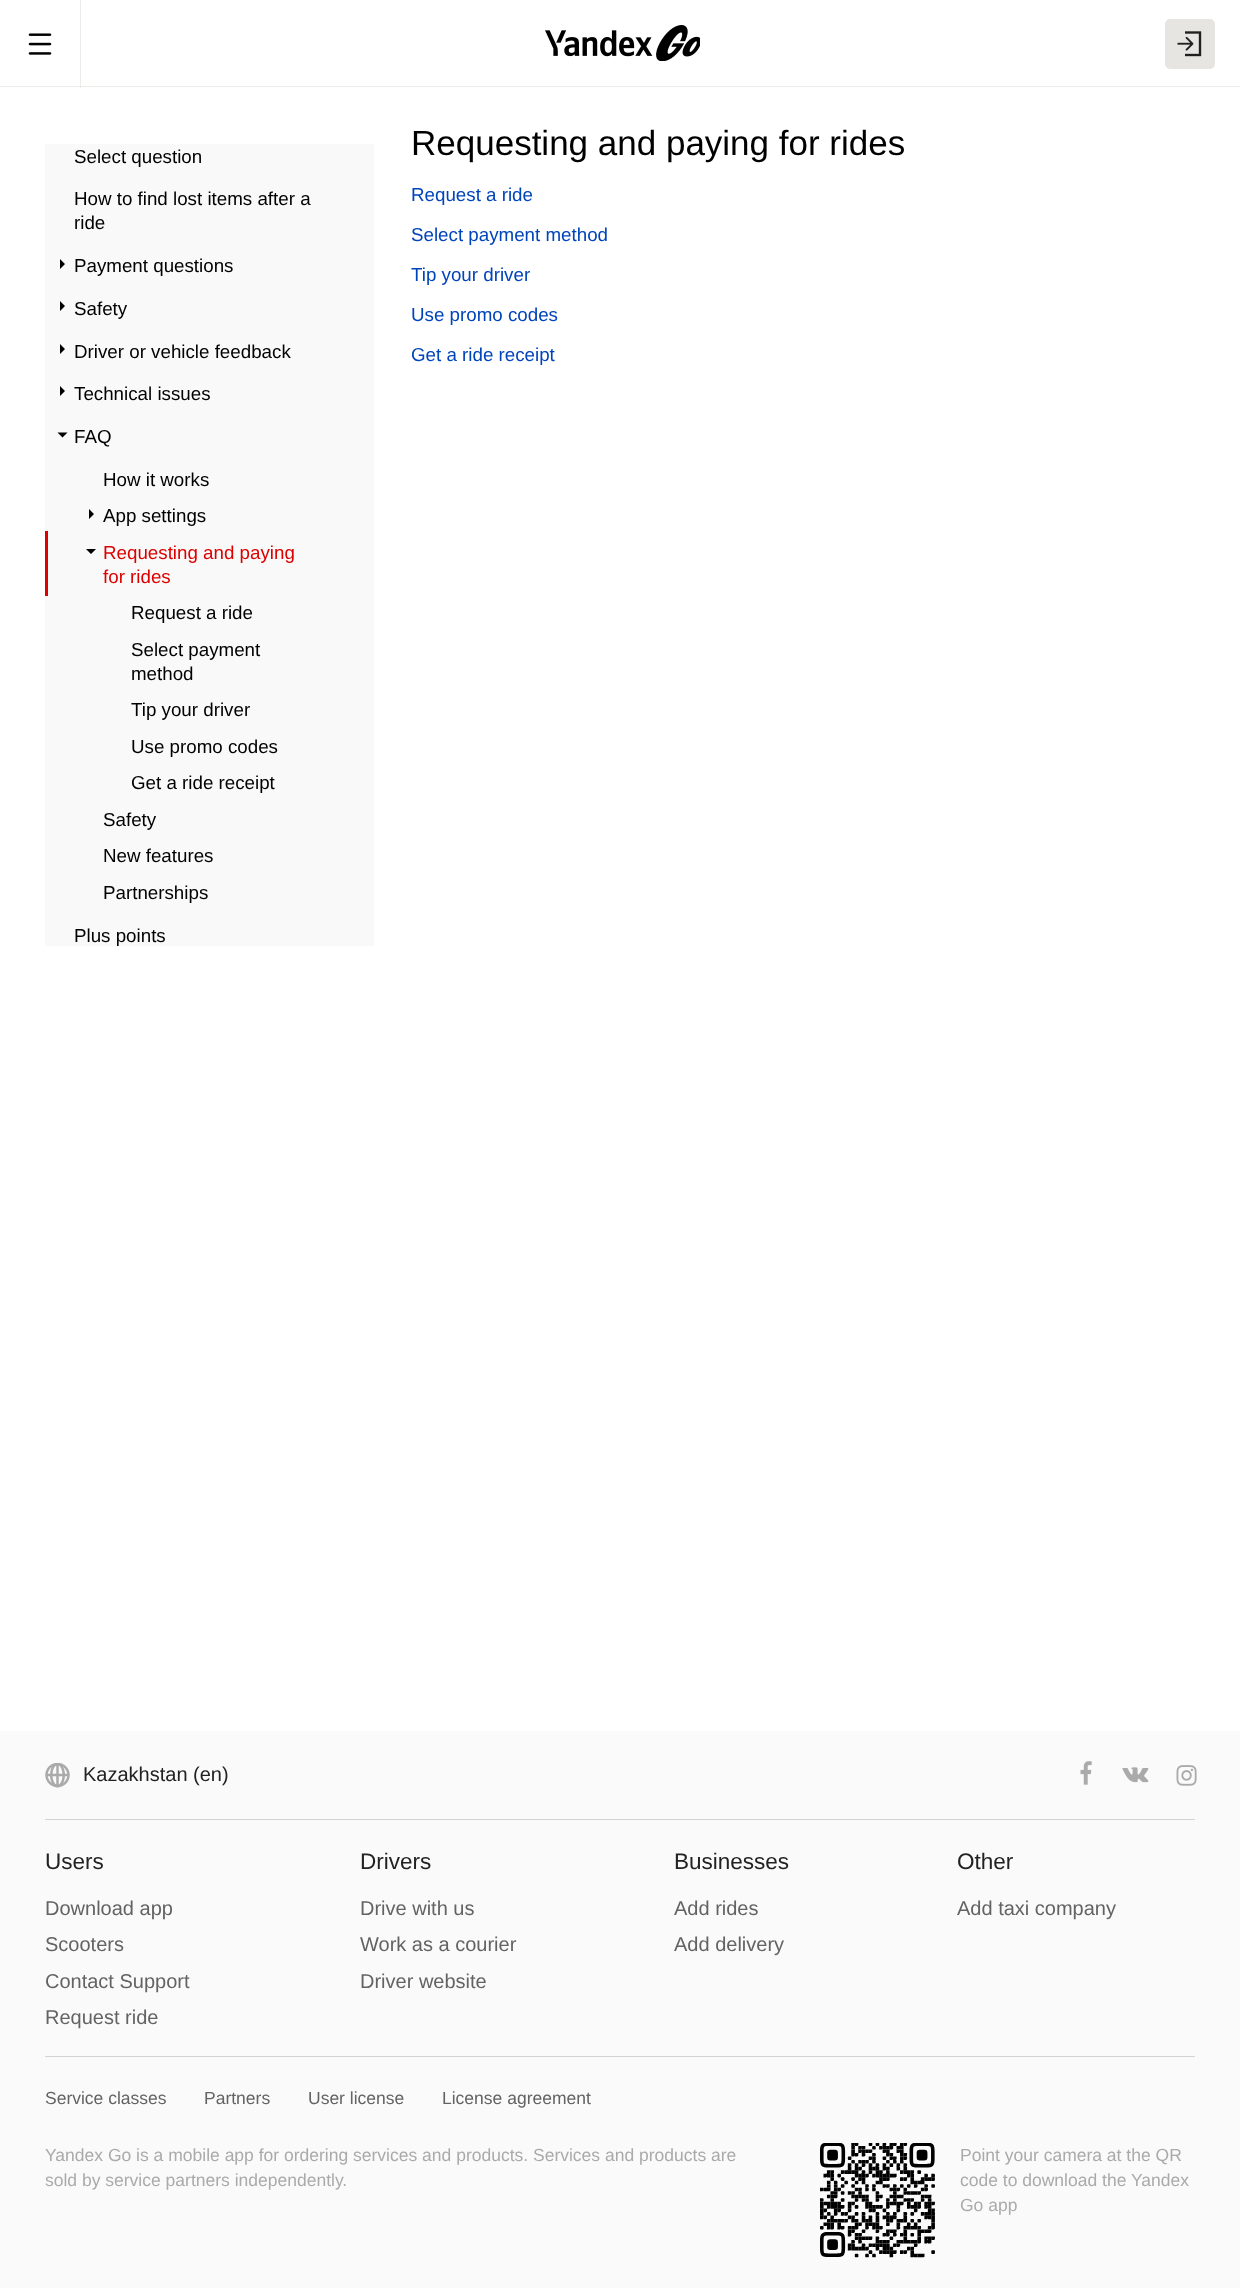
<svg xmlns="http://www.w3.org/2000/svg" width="1240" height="2288">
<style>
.a{font:18.75px Liberation Sans;fill:#000}
.b{font:18.75px Liberation Sans;fill:#d00}
.c{font:35px Liberation Sans;fill:#000}
.d{font:18.75px Liberation Sans;fill:#04b}
.e{font:20px Liberation Sans;fill:#222}
.f{font:22.5px Liberation Sans;fill:#222}
.g{font:20px Liberation Sans;fill:#636363}
.h{font:17.5px Liberation Sans;fill:#636363}
.i{font:17.5px Liberation Sans;fill:#aaa}
</style>
<rect width="100%" height="100%" fill="#fff"/>
<path fill="#edece8" d="M0 86h1240v1H0z"/>
<path fill="#edece8" d="M1 88h80v-88h-1v88z"/>
<image href="1.png" x="28" y="33" width="24" height="22"/>
<image href="2.png" x="545" y="25" width="155" height="36"/>
<rect fill="#e7e5e1" x="1165" y="19" width="50" height="50" rx="5"/>
<image href="3.png" x="1177" y="31" width="25" height="26"/>
<path fill="#f9f9f9" d="M45 144h329v802H45z"/>
<path fill="#000" d="M60 269v-10l5 5zm0 42v-10l5 5z"/>
<path fill="#000" d="M60 354v-10l5 5zm0 42v-10l5 5z"/>
<path fill="#000" d="M57.5 432.5h10l-5 5z"/>
<path fill="#000" d="M89 519v-10l5 5zm-3 30h10l-5 5z"/>
<path fill="#d00" d="M45 531h3v65H45z"/>
<path fill="#fafafa" d="M0 1731h1240v557H0z"/>
<path fill="#d3d3d3" d="M45 1819h1150v1H45z"/>
<image href="4.png" x="45" y="1763" width="25" height="25"/>
<image href="5.png" x="1080" y="1761" width="12" height="24"/>
<image href="6.png" x="1122" y="1767" width="27" height="16"/>
<image href="7.png" x="1176" y="1765" width="21" height="21"/>
<path fill="#d3d3d3" d="M45 2056h1150v1H45z"/>
<image href="8.png" x="820" y="2143" width="115" height="115"/>
<text class="a" x="74" y="163">Select question</text>
<text class="a" x="74" y="205">How to find lost items after a</text>
<text class="a" x="74" y="229">ride</text>
<text class="a" x="74" y="272">Payment questions</text>
<text class="a" x="74" y="315">Safety</text>
<text class="a" x="74" y="358">Driver or vehicle feedback</text>
<text class="a" x="74" y="400">Technical issues</text>
<text class="a" x="74" y="443">FAQ</text>
<text class="a" x="103" y="486">How it works</text>
<text class="a" x="103" y="522">App settings</text>
<text class="b" x="103" y="559">Requesting and paying</text>
<text class="b" x="103" y="583">for rides</text>
<text class="a" x="131" y="619">Request a ride</text>
<text class="a" x="131" y="656">Select payment</text>
<text class="a" x="131" y="680">method</text>
<text class="a" x="131" y="716">Tip your driver</text>
<text class="a" x="131" y="753">Use promo codes</text>
<text class="a" x="131" y="789">Get a ride receipt</text>
<text class="a" x="103" y="826">Safety</text>
<text class="a" x="103" y="862">New features</text>
<text class="a" x="103" y="899">Partnerships</text>
<text class="a" x="74" y="942">Plus points</text>
<text class="c" x="411" y="155">Requesting and paying for rides</text>
<text class="d" x="411" y="201">Request a ride</text>
<text class="d" x="411" y="241">Select payment method</text>
<text class="d" x="411" y="281">Tip your driver</text>
<text class="d" x="411" y="321">Use promo codes</text>
<text class="d" x="411" y="361">Get a ride receipt</text>
<text class="e" x="83" y="1781">Kazakhstan (en)</text>
<text class="f" x="45" y="1869">Users</text>
<text class="g" x="45" y="1915">Download app</text>
<text class="g" x="45" y="1951">Scooters</text>
<text class="g" x="45" y="1988">Contact Support</text>
<text class="g" x="45" y="2024">Request ride</text>
<text class="f" x="360" y="1869">Drivers</text>
<text class="g" x="360" y="1915">Drive with us</text>
<text class="g" x="360" y="1951">Work as a courier</text>
<text class="g" x="360" y="1988">Driver website</text>
<text class="f" x="674" y="1869">Businesses</text>
<text class="g" x="674" y="1915">Add rides</text>
<text class="g" x="674" y="1951">Add delivery</text>
<text class="f" x="957" y="1869">Other</text>
<text class="g" x="957" y="1915">Add taxi company</text>
<text class="h" x="45" y="2104">Service classes</text>
<text class="h" x="204" y="2104">Partners</text>
<text class="h" x="308" y="2104">User license</text>
<text class="h" x="442" y="2104">License agreement</text>
<text class="i" x="45" y="2161">Yandex Go is a mobile app for ordering services and products. Services and products are</text>
<text class="i" x="45" y="2186">sold by service partners independently.</text>
<text class="i" x="960" y="2161">Point your camera at the QR</text>
<text class="i" x="960" y="2186">code to download the Yandex</text>
<text class="i" x="960" y="2211">Go app</text>
</svg>
